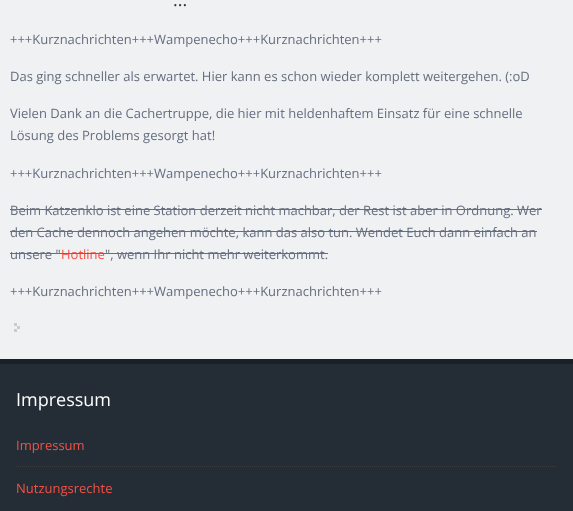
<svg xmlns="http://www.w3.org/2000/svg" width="573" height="511">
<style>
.a{font:18px Open Sans;fill:#333}
.b{font:13px Open Sans;fill:#656e7f}
.c{font:13px Open Sans;fill:#f45145}
.d{font:18px Open Sans;fill:#fff}
</style>
<rect width="100%" height="100%" fill="#f0f1f3"/>
<path fill="#656e7f" d="M10 209h532v1H10z"/>
<path fill="#656e7f" d="M10 231h527v1H10z"/>
<path fill="#656e7f" d="M10 253h51v1H10z"/>
<path fill="#656e7f" d="M105 253h223v1H105z"/>
<image href="1.png" x="14" y="323" width="6" height="9"/>
<path fill="#242d36" d="M0 364h573v147H0z"/>
<path fill="#1a2027" d="M0 359h573v5H0z"/>
<path fill="none" stroke="#3c3c3c" stroke-dasharray="1 1" d="M16 466.5h541"/>
<text class="a" x="173" y="6">...</text>
<text class="b" x="10" y="44">+++Kurznachrichten+++Wampenecho+++Kurznachrichten+++</text>
<text class="b" x="10" y="81">Das ging schneller als erwartet. Hier kann es schon wieder komplett weitergehen. (:oD</text>
<text class="b" x="10" y="118">Vielen Dank an die Cachertruppe, die hier mit heldenhaftem Einsatz für eine schnelle</text>
<text class="b" x="10" y="140">Lösung des Problems gesorgt hat!</text>
<text class="b" x="10" y="178">+++Kurznachrichten+++Wampenecho+++Kurznachrichten+++</text>
<text class="b" x="10" y="215">Beim Katzenklo ist eine Station derzeit nicht machbar, der Rest ist aber in Ordnung. Wer</text>
<text class="b" x="10" y="237">den Cache dennoch angehen möchte, kann das also tun. Wendet Euch dann einfach an</text>
<text class="b" x="10" y="259">unsere "</text>
<text class="c" x="61" y="259">Hotline</text>
<path fill="#656e7f" d="M61 253h44v1H61z"/>
<text class="b" x="105" y="259">", wenn Ihr nicht mehr weiterkommt.</text>
<text class="b" x="10" y="296">+++Kurznachrichten+++Wampenecho+++Kurznachrichten+++</text>
<text class="d" x="16" y="406">Impressum</text>
<text class="c" x="16" y="450">Impressum</text>
<text class="c" x="16" y="493">Nutzungsrechte</text>
</svg>
